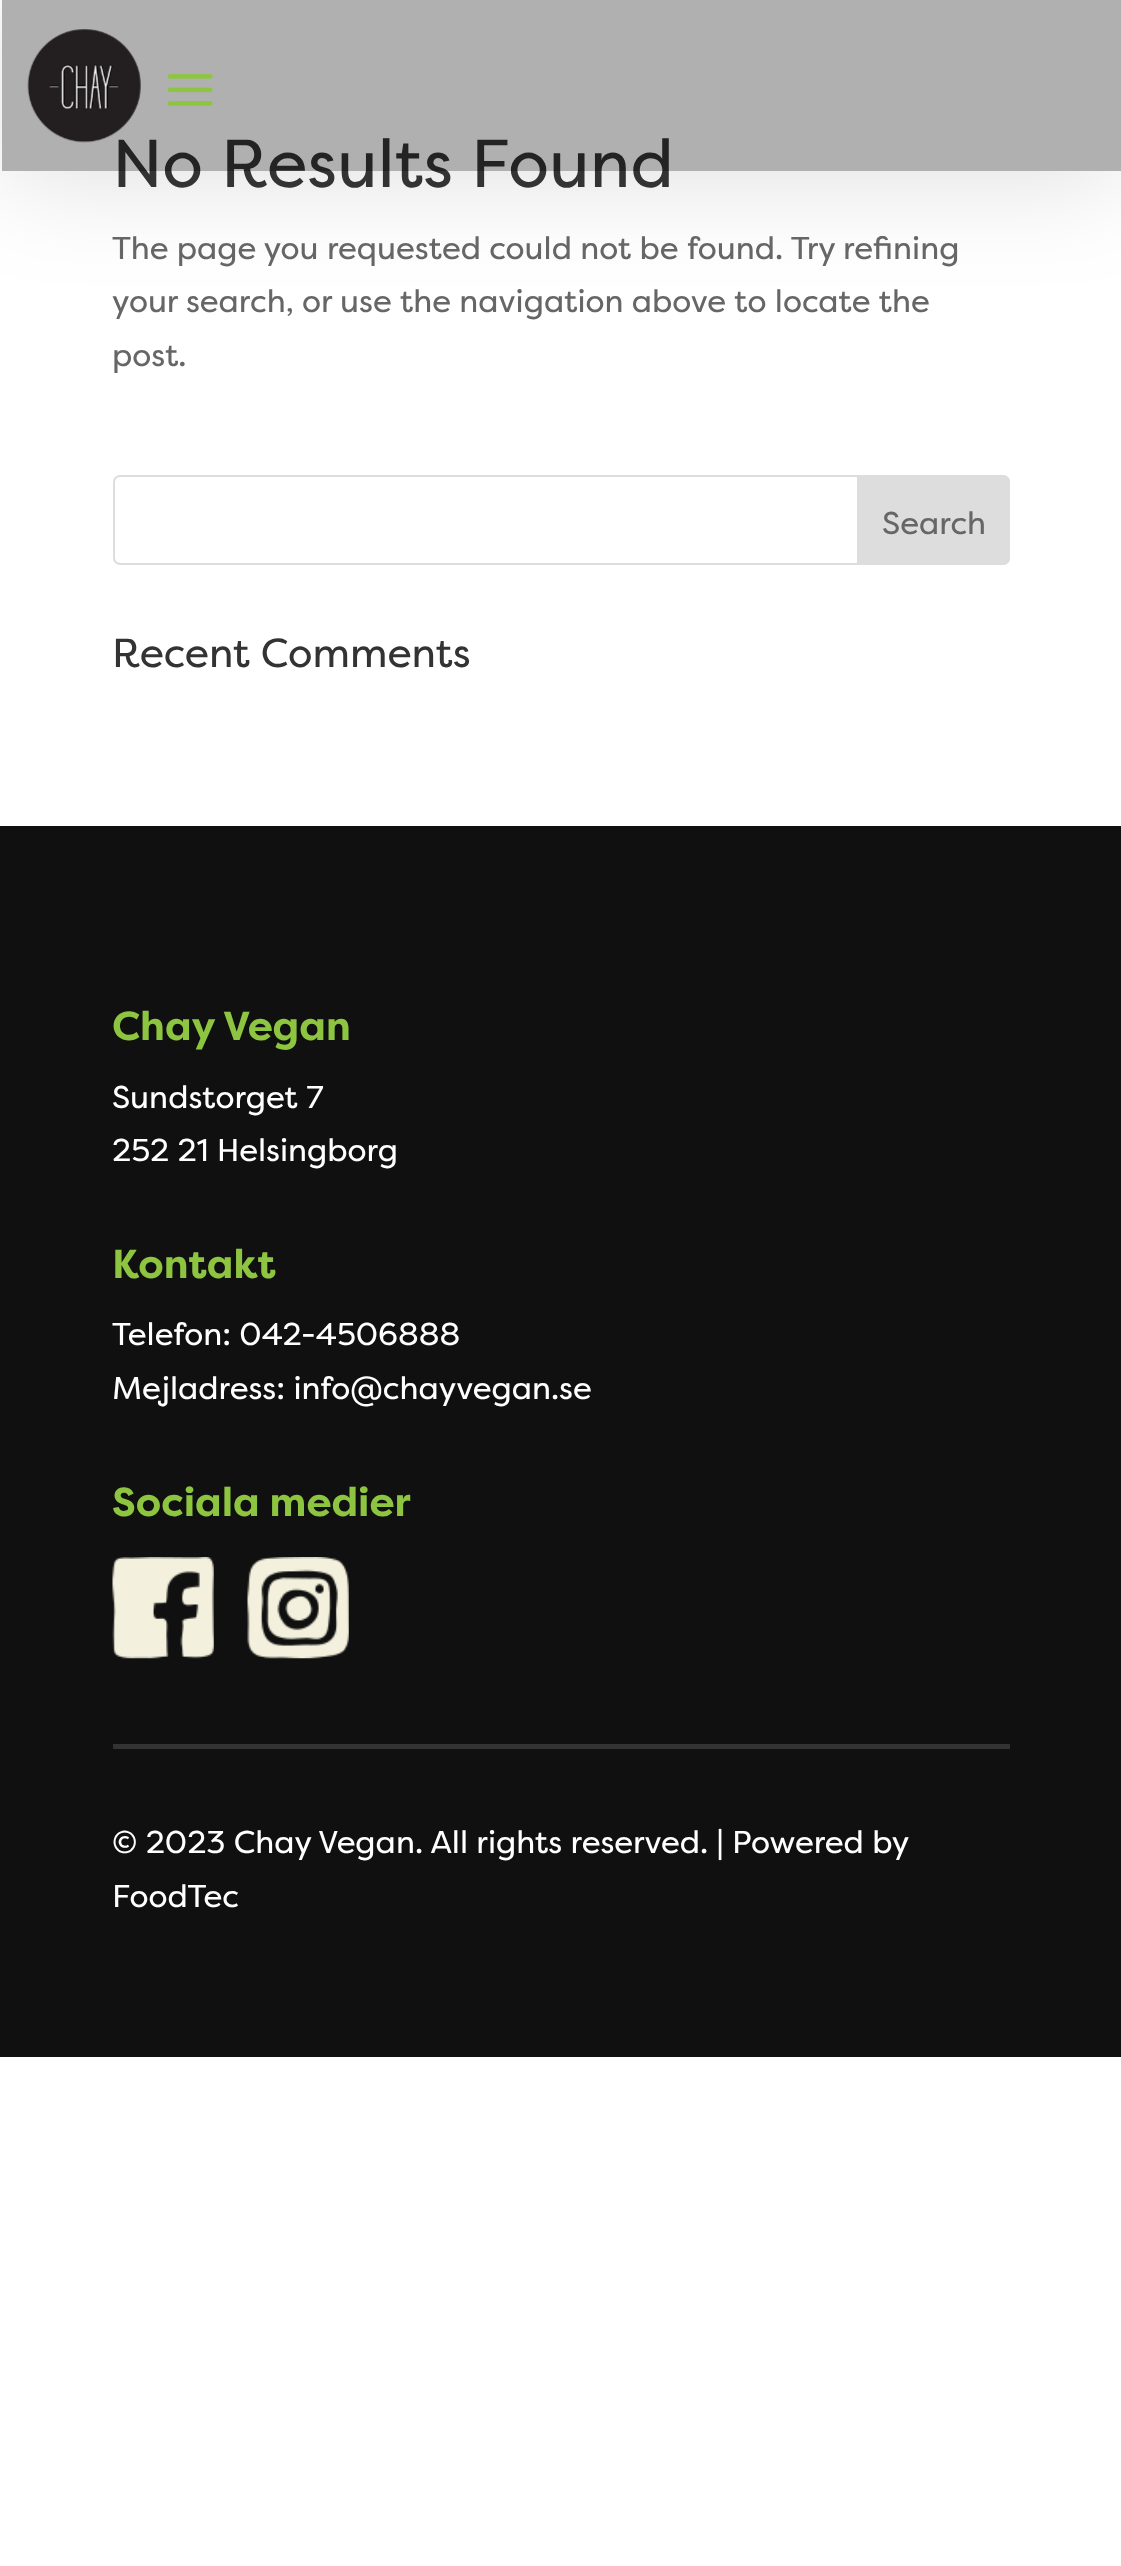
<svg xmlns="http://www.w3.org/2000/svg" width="1121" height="2566">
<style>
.a{font:67.5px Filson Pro;fill:#333}
.b{font:31.5px Filson Pro;fill:#666}
.c{font:40.5px Filson Pro;fill:#333}
.d{font:bold 40.5px Filson Pro;fill:#8dc540}
.e{font:31.5px Filson Pro;fill:#fff}
</style>
<defs>
<clipPath id="clip1"><path d="M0 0h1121v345h-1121zm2 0h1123v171h-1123z" clip-rule="evenodd"/></clipPath>
</defs>
<rect width="100%" height="100%" fill="#fff"/>
<g clip-path="url(#clip1)">
<path fill="#00000021" filter="blur(56px)" d="M2 5h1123v171H2z"/>
</g>
<rect fill="none" stroke="#ddd" stroke-width="2" x="114" y="476" width="895" height="88" rx="6"/>
<path fill="#ddd" stroke="#ddd" stroke-width="2" d="M858 476h145c3.5 0 6 2.5 6 6v76c0 3.5-2.5 6-6 6h-145z"/>
<path fill="#101010" d="M0 826h1121v1231H0z"/>
<image href="3.png" x="112" y="1557" width="102" height="102"/>
<image href="4.png" x="247" y="1557" width="102" height="102"/>
<path fill="#333" d="M113 1744h897v5H113z"/>
<text class="a" x="112" y="187">No Results Found</text>
<path fill="#0000004f" d="M2 0h1119v171H2z"/>
<image href="2.png" x="167" y="74" width="46" height="32"/>
<image href="1.png" x="27" y="29" width="114" height="114"/>
<text class="b" x="112" y="259">The page you requested could not be found. Try refining</text>
<text class="b" x="112" y="312">your search, or use the navigation above to locate the</text>
<text class="b" x="112" y="366">post.</text>
<text class="b" x="882" y="534">Search</text>
<text class="c" x="112" y="667">Recent Comments</text>
<text class="d" x="112" y="1040">Chay Vegan</text>
<text class="e" x="112" y="1108">Sundstorget 7</text>
<text class="e" x="112" y="1161">252 21 Helsingborg</text>
<text class="d" x="112" y="1278">Kontakt</text>
<text class="e" x="112" y="1345">Telefon: 042-4506888</text>
<text class="e" x="112" y="1399">Mejladress: info@chayvegan.se</text>
<text class="d" x="112" y="1516">Sociala medier</text>
<text class="e" x="112" y="1853">© 2023 Chay Vegan. All rights reserved. | Powered by</text>
<text class="e" x="112" y="1907">FoodTec</text>
</svg>
